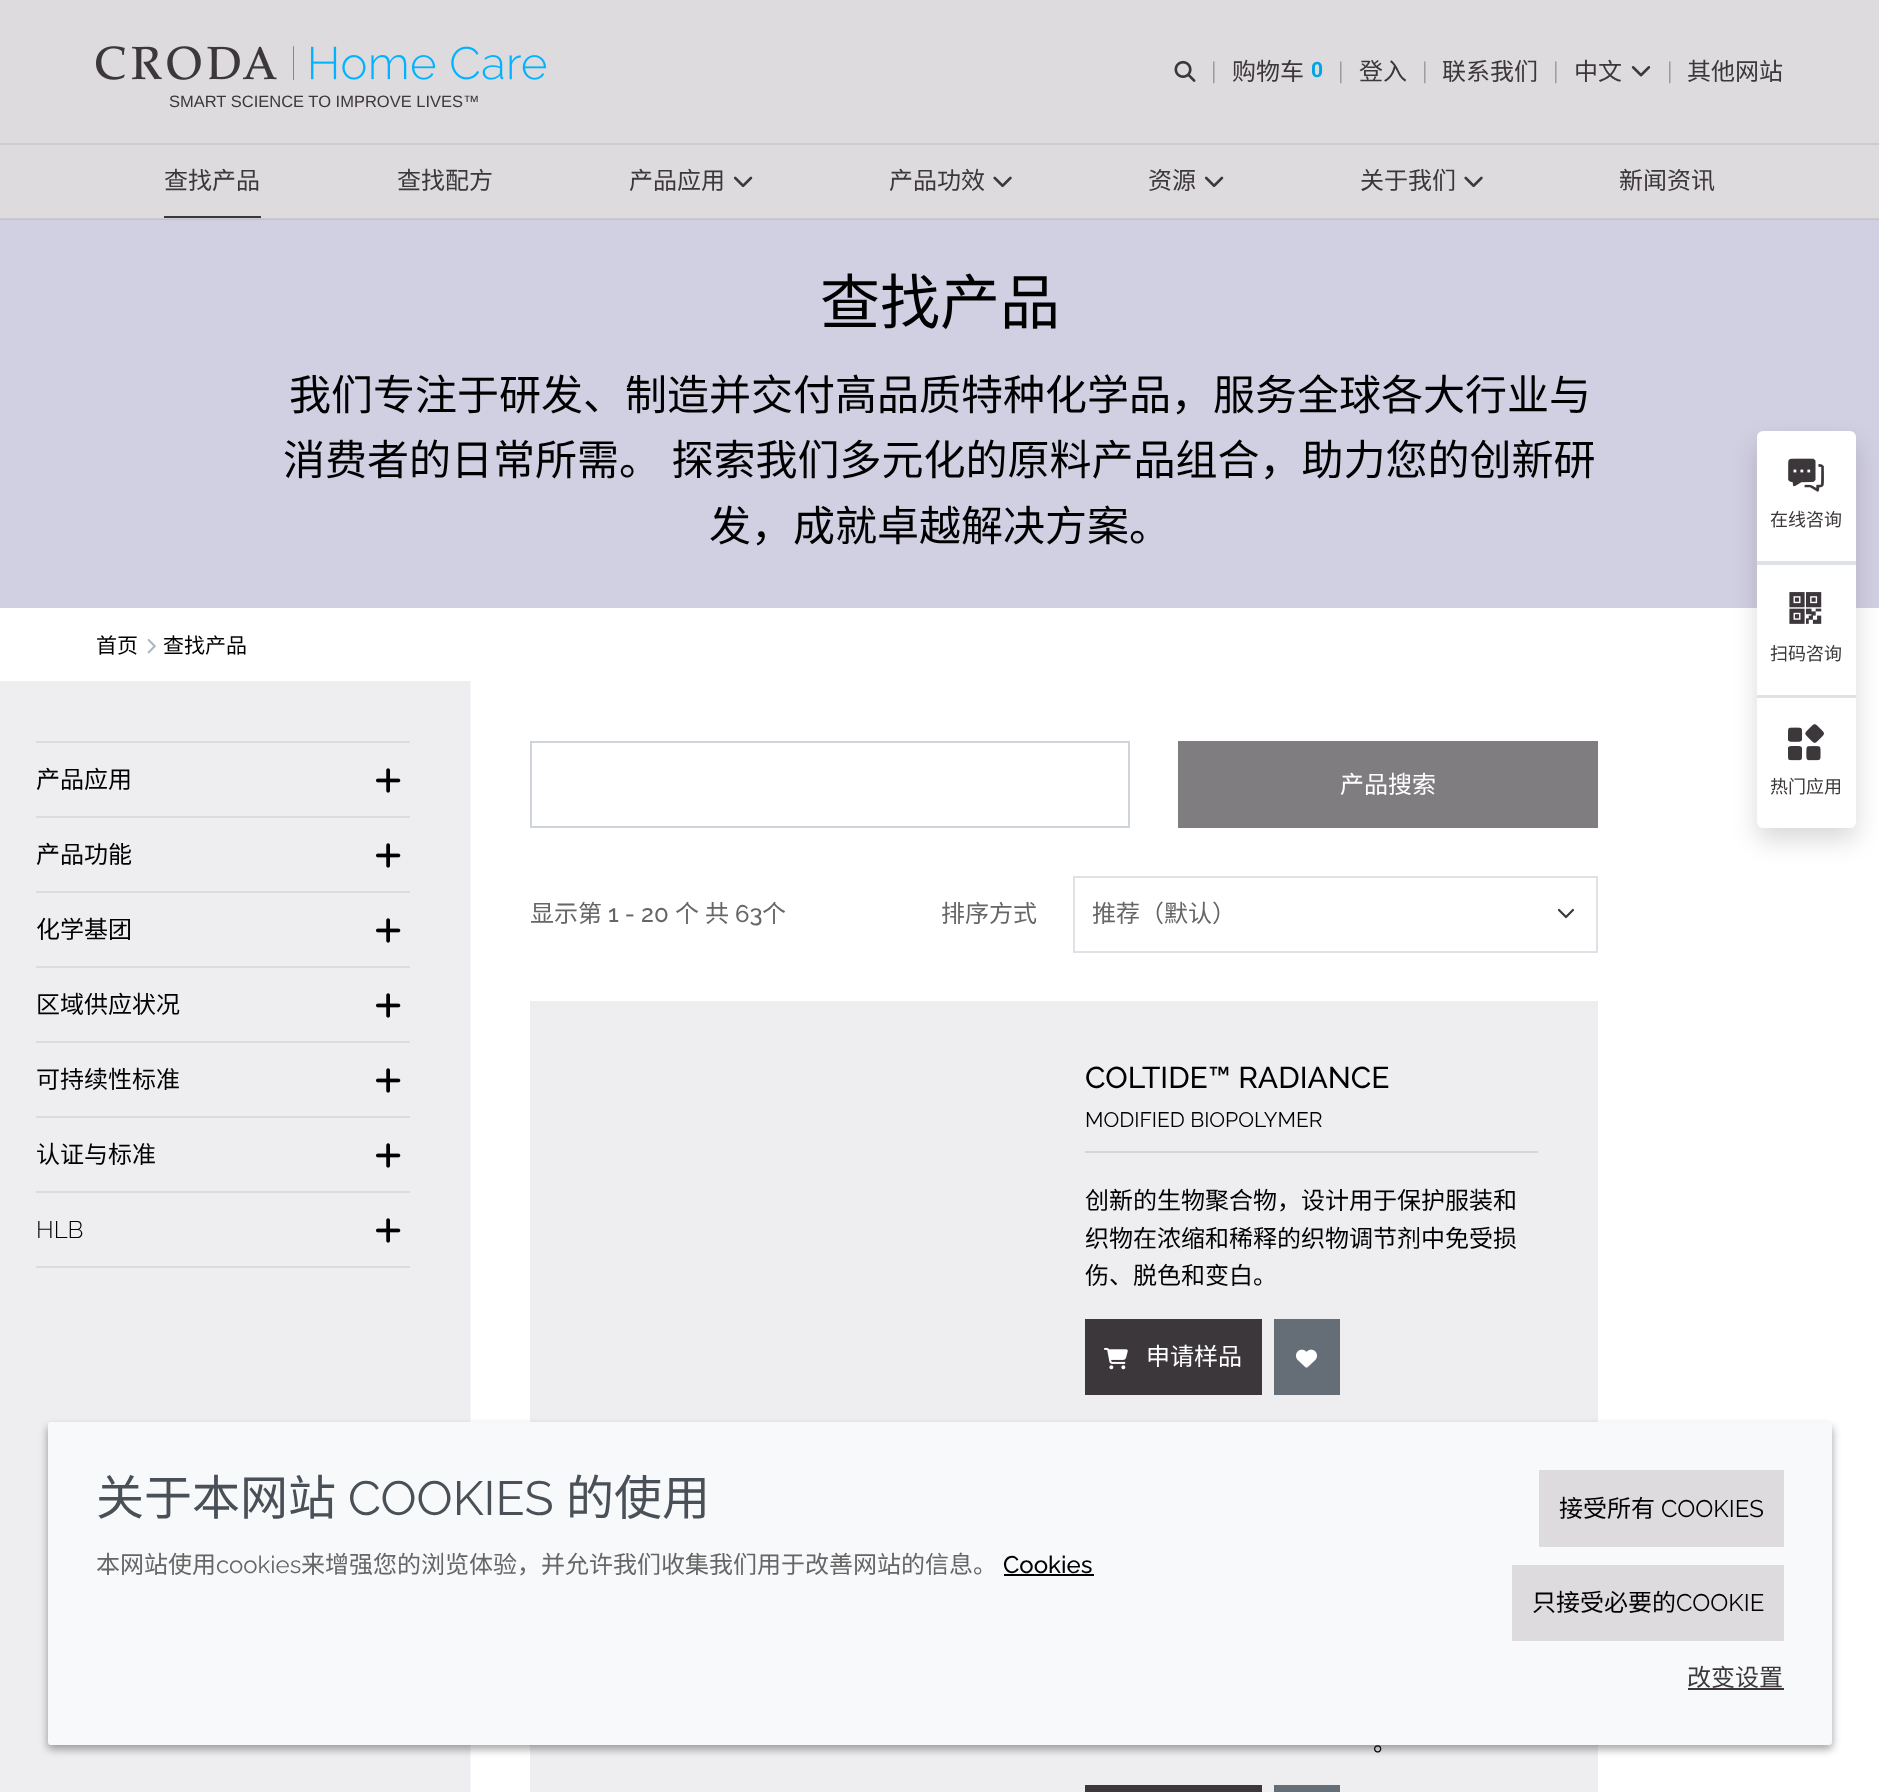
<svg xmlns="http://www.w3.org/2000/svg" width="1879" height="1792">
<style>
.a{font:24px Raleway;fill:#9c999d}
.b{font:24px Noto Sans CJK SC;fill:#3b373b}
.c{font:bold 21px Roboto;fill:#00a4e6}
.d{font:16.5px Liberation Sans;fill:#3b373b}
.e{font:60px Noto Sans CJK SC;fill:#000}
.f{font:42px Noto Sans CJK SC;fill:#000}
.g{font:21px Noto Sans CJK SC;fill:#000}
.h{font:24px Noto Sans CJK SC;fill:#000}
.i{font:300 24px Raleway;fill:#000}
.j{font:24px Noto Sans CJK SC;fill:#fff}
.k{font:24px Noto Sans CJK SC;fill:#666}
.l{font:500 24px Raleway;fill:#666}
.m{font:500 30px Raleway;fill:#000}
.n{font:21px Raleway;fill:#000}
.o{font:18px Noto Sans CJK SC;fill:#3b373b}
.p{font:48px Noto Sans CJK SC;fill:#495057}
.q{font:48px Raleway;fill:#495057}
.r{font:24px Raleway;fill:#000}
.s{font:24px Raleway;fill:#666}
.t{font:500 24px Raleway;fill:#000}
</style>
<rect width="100%" height="100%" fill="#fff"/>
<path fill="#dddbde" d="M0 0h1879v218H0z"/>
<path fill="#cdcbce" d="M0 218h1879v1H0z"/>
<image href="1.png" x="1174" y="60" width="22" height="22"/>
<image href="2.png" x="1631" y="66" width="20" height="11"/>
<image href="3.png" x="96" y="46" width="450" height="34"/>
<path fill="#cdcbce" d="M0 143h1879v2H0z"/>
<path fill="#3b373b" d="M164 216h97v2H164z"/>
<image href="4.png" x="733" y="176" width="20" height="12"/>
<image href="5.png" x="993" y="176" width="19" height="12"/>
<image href="4.png" x="1204" y="176" width="20" height="12"/>
<image href="5.png" x="1464" y="176" width="19" height="12"/>
<path fill="#d1cfe2" d="M0 220h1879v388H0z"/>
<path fill="#c2c0d1" d="M0 219h1879v1H0z"/>
<path fill="none" stroke="#0e3f7e0a" stroke-width="2" d="M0 681h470v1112H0z"/>
<path fill="#fff" d="M0 680h471v1H0z"/>
<image href="6.png" x="147" y="639" width="9" height="15"/>
<path fill="#eeedef" d="M0 681h470v1111H0z"/>
<path fill="#dddbdf" d="M36 741h374v2H36z"/>
<path fill="#dddbdf" d="M36 816h374v2H36z"/>
<image href="7.png" x="376" y="768" width="25" height="25"/>
<path fill="#dddbdf" d="M36 891h374v2H36z"/>
<image href="7.png" x="376" y="843" width="25" height="25"/>
<path fill="#dddbdf" d="M36 966h374v2H36z"/>
<image href="7.png" x="376" y="918" width="25" height="25"/>
<path fill="#dddbdf" d="M36 1041h374v2H36z"/>
<image href="7.png" x="376" y="993" width="25" height="25"/>
<path fill="#dddbdf" d="M36 1116h374v2H36z"/>
<image href="7.png" x="376" y="1068" width="25" height="25"/>
<path fill="#dddbdf" d="M36 1191h374v2H36z"/>
<image href="7.png" x="376" y="1143" width="25" height="25"/>
<path fill="#dddbdf" d="M36 1266h374v2H36z"/>
<image href="7.png" x="376" y="1218" width="25" height="25"/>
<path fill="none" stroke="#ced4da" stroke-width="2" d="M531 742h598v85H531z"/>
<path fill="#807d80" d="M1178 741h420v87H1178z"/>
<path fill="none" stroke="#343a40" stroke-width="2.2" stroke-linecap="round" stroke-linejoin="round" d="M1559 910l7 7l7-7"/>
<path fill="none" stroke="#dee2e6" stroke-width="2" d="M1074 877h523v75H1074z"/>
<path fill="#eeedef" d="M530 1001h1068v421H530z"/>
<path fill="#d6d5d7" d="M1085 1151h453v2H1085z"/>
<path fill="#3b373b" d="M1085 1319h177v76H1085z"/>
<image href="8.png" x="1104" y="1347" width="24" height="23"/>
<path fill="#656e77" d="M1274 1319h66v76H1274z"/>
<image href="9.png" x="1296" y="1349" width="21" height="19"/>
<path fill="#eeedef" d="M530 1745h1068v47H530z"/>
<path fill="#3b373b" d="M1085 1785h177v7H1085z"/>
<path fill="#656e77" d="M1274 1785h66v7H1274z"/>
<rect fill="#00000026" filter="blur(12px)" x="1757" y="443" width="99" height="397" rx="6"/>
<rect fill="#fff" x="1757" y="431" width="99" height="397" rx="6"/>
<path fill="#dee2e6" d="M1757 561h99v4H1757z"/>
<image href="10.png" x="1788" y="458" width="36" height="34"/>
<image href="11.png" x="1789" y="592" width="33" height="32"/>
<path fill="#dee2e6" d="M1757 695h99v3H1757z"/>
<image href="12.png" x="1788" y="724" width="36" height="37"/>
<rect fill="#0000003b" filter="blur(4.5px)" x="48" y="1427" width="1784" height="322" rx="3"/>
<rect fill="#00000029" filter="blur(4.5px)" x="48" y="1427" width="1784" height="322" rx="3"/>
<rect fill="#f8f9fa" x="48" y="1422" width="1784" height="323" rx="3"/>
<path fill="#dddbde" d="M1539 1470h245v77H1539z"/>
<path fill="#dddbde" d="M1512 1565h272v76H1512z"/>
<path fill="#3b373b" d="M1688 1688h96v2H1688z"/>
<path fill="#000" d="M1004 1574h90v2H1004z"/>
<text class="a" x="1211" y="80">|</text>
<text class="b" x="1232" y="80">购物车</text>
<text class="c" x="1311" y="77">0</text>
<text class="a" x="1338" y="80">|</text>
<text class="b" x="1359" y="80">登入</text>
<text class="a" x="1422" y="80">|</text>
<text class="b" x="1442" y="80">联系我们</text>
<text class="a" x="1553" y="80">|</text>
<text class="b" x="1574" y="80">中文</text>
<text class="a" x="1667" y="80">|</text>
<text class="b" x="1687" y="80">其他网站</text>
<text class="d" x="169" y="107">SMART SCIENCE TO IMPROVE LIVES™</text>
<text class="b" x="164" y="189">查找产品</text>
<text class="b" x="397" y="189">查找配方</text>
<text class="b" x="629" y="189">产品应用</text>
<text class="b" x="889" y="189">产品功效</text>
<text class="b" x="1148" y="189">资源</text>
<text class="b" x="1360" y="189">关于我们</text>
<text class="b" x="1619" y="189">新闻资讯</text>
<text class="e" x="820" y="324">查找产品</text>
<text class="f" x="289" y="410">我们专注于研发、制造并交付高品质特种化学品，服务全球各大行业与</text>
<text class="f" x="283" y="475" word-spacing="1">消费者的日常所需。 探索我们多元化的原料产品组合，助力您的创新研</text>
<text class="f" x="709" y="541">发，成就卓越解决方案。</text>
<text class="g" x="96" y="653">首页</text>
<text class="g" x="163" y="653">查找产品</text>
<text class="h" x="36" y="788">产品应用</text>
<text class="h" x="36" y="863">产品功能</text>
<text class="h" x="36" y="938">化学基团</text>
<text class="h" x="36" y="1013">区域供应状况</text>
<text class="h" x="36" y="1088">可持续性标准</text>
<text class="h" x="36" y="1163">认证与标准</text>
<text class="i" x="36" y="1238">HLB</text>
<text class="j" x="1340" y="793">产品搜索</text>
<text class="k" x="530" y="922">显示第</text>
<text class="l" x="608" y="922">1 - 20</text>
<text class="k" x="675" y="922">个</text>
<text class="k" x="705" y="922">共</text>
<text class="l" x="735" y="922">63</text>
<text class="k" x="762" y="922">个</text>
<text class="k" x="941" y="922">排序方式</text>
<text class="k" x="1092" y="922">推荐（默认）</text>
<text class="m" x="1085" y="1088">COLTIDE™ RADIANCE</text>
<text class="n" x="1085" y="1127">MODIFIED BIOPOLYMER</text>
<text class="h" x="1085" y="1209">创新的生物聚合物，设计用于保护服装和</text>
<text class="h" x="1085" y="1247">织物在浓缩和稀释的织物调节剂中免受损</text>
<text class="h" x="1085" y="1284">伤、脱色和变白。</text>
<text class="j" x="1146" y="1365">申请样品</text>
<text class="h" x="1373" y="1751">。</text>
<text class="o" x="1770" y="526">在线咨询</text>
<text class="o" x="1770" y="660">扫码咨询</text>
<text class="o" x="1770" y="793">热门应用</text>
<text class="p" x="96" y="1515">关于本网站</text>
<text class="q" x="348" y="1515">COOKIES</text>
<text class="p" x="566" y="1515">的使用</text>
<text class="h" x="1559" y="1517">接受所有</text>
<text class="r" x="1661" y="1517">COOKIES</text>
<text class="h" x="1532" y="1611">只接受必要的</text>
<text class="r" x="1676" y="1611">COOKIE</text>
<text class="b" x="1687" y="1686">改变设置</text>
<text class="k" x="96" y="1573">本网站使用</text>
<text class="s" x="216" y="1573">cookies</text>
<text class="k" x="301" y="1573">来增强您的浏览体验，并允许我们收集我们用于改善网站的信息。</text>
<text class="t" x="1003" y="1573">Cookies</text>
</svg>
